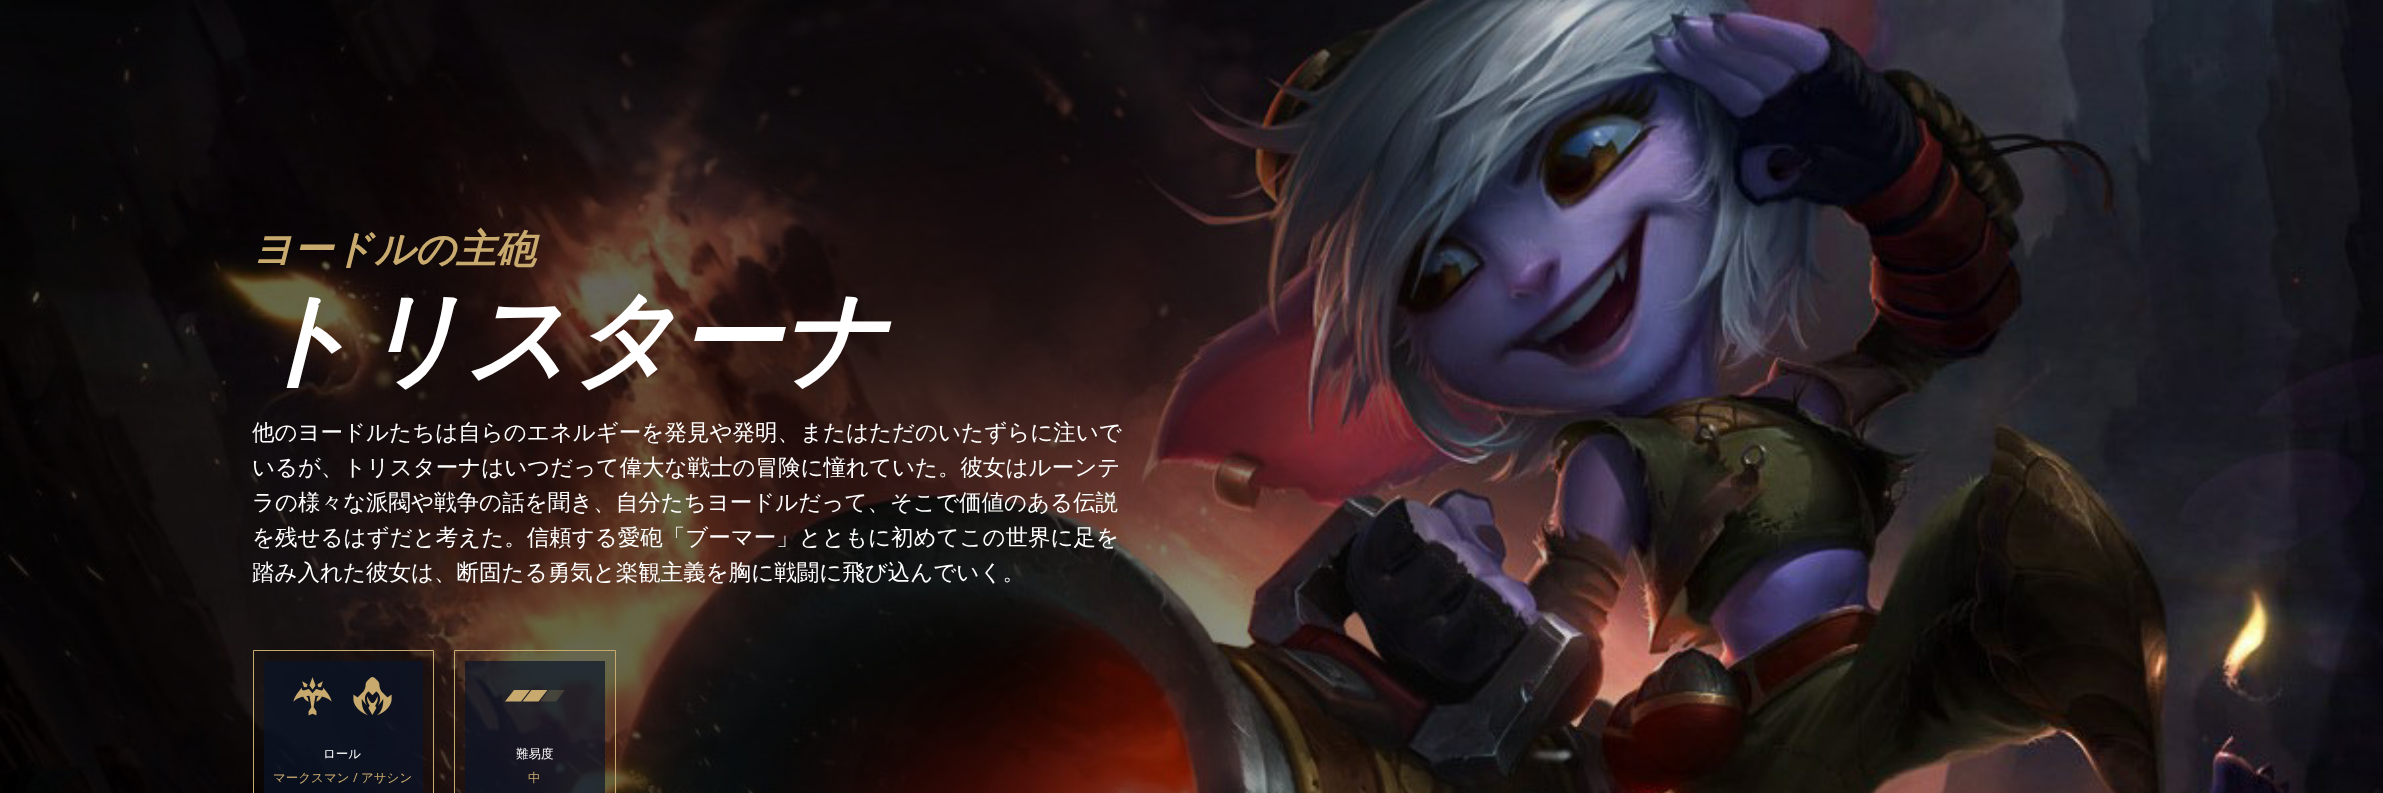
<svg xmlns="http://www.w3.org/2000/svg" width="2383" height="793">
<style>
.a{font:italic bold 40px WenQuanYi Zen Hei;fill:#c8aa6e}
.b{font:italic bold 103.75px WenQuanYi Zen Hei;fill:#fff}
.c{font:500 22.5px WenQuanYi Zen Hei;fill:#fff}
.d{font:500 12.5px WenQuanYi Zen Hei;fill:#fff}
.e{font:500 12.5px WenQuanYi Zen Hei;fill:#c8aa6e}
.f{font:12.5px Noto Sans;fill:#c8aa6e}
</style>
<rect width="100%" height="100%" fill="#fff"/>
<image href="1.png" x="0" y="0" width="2383" height="793"/>
<path fill="none" stroke="#c8aa6e" d="M253.5 650.5h180v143H253.5z"/>
<path fill="#0a1428b3" d="M264 661h159v132H264z"/>
<image href="2.png" x="293" y="677" width="39" height="39"/>
<image href="3.png" x="353" y="677" width="39" height="39"/>
<path fill="none" stroke="#c8aa6e" d="M454.5 650.5h161v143H454.5z"/>
<path fill="#0a1428b3" d="M465 661h140v132H465z"/>
<path fill="#c8aa6e" d="M521 701.5h-16l9-11.5h16z"/>
<path fill="#c8aa6e" d="M538.5 701.5h-16l9-11.5h16z"/>
<path fill="#c8aa6e33" d="M556 701.5h-16l9-11.5h16z"/>
<text class="a" x="252" y="263">ヨードルの主砲</text>
<text class="b" x="252" y="375">トリスターナ</text>
<text class="c" x="252" y="440">他のヨードルたちは自らのエネルギーを発見や発明、またはただのいたずらに注いで</text>
<text class="c" x="252" y="475">いるが、トリスターナはいつだって偉大な戦士の冒険に憧れていた。彼女はルーンテ</text>
<text class="c" x="252" y="510">ラの様々な派閥や戦争の話を聞き、自分たちヨードルだって、そこで価値のある伝説</text>
<text class="c" x="252" y="545">を残せるはずだと考えた。信頼する愛砲「ブーマー」とともに初めてこの世界に足を</text>
<text class="c" x="252" y="580">踏み入れた彼女は、断固たる勇気と楽観主義を胸に戦闘に飛び込んでいく。</text>
<text class="d" x="323" y="758">ロール</text>
<text class="e" x="273" y="782">マークスマン</text>
<text class="f" x="353" y="782">/</text>
<text class="e" x="361" y="782">アサシン</text>
<text class="d" x="516" y="758">難易度</text>
<text class="e" x="528" y="782">中</text>
</svg>
